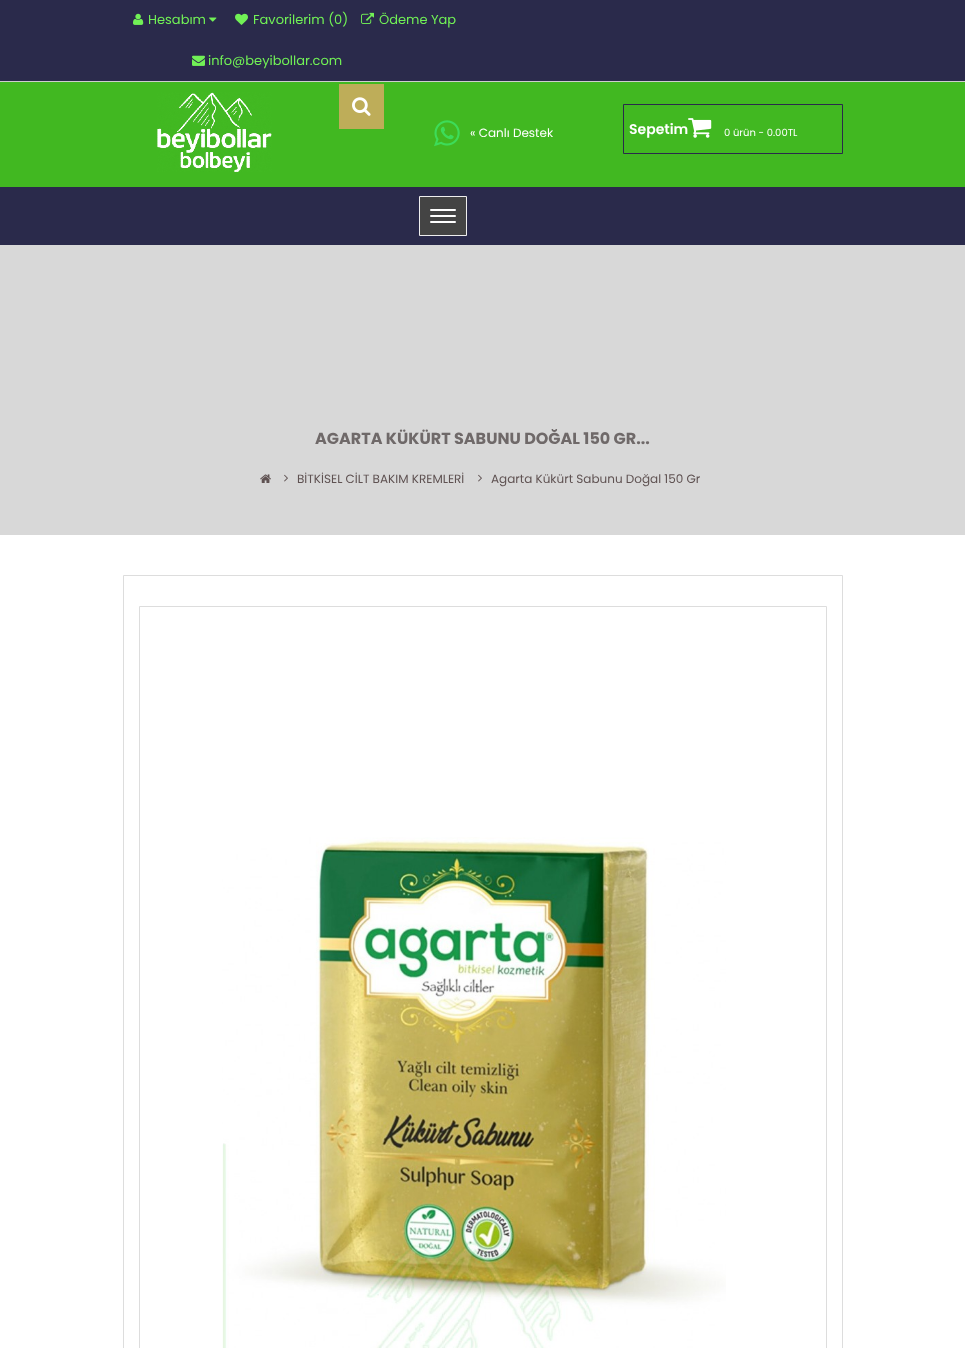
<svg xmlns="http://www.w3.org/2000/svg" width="965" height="1348">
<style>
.a{font:13px Poppins;fill:#71f156}
.b{font:12px Poppins;fill:#fff}
.c{font:600 14px Poppins;fill:#fff}
.d{font:10px Poppins;fill:#fff}
.e{font:bold 16px Poppins;fill:#6f6969}
.f{font:12px Poppins;fill:#5f5252}
</style>
<rect width="100%" height="100%" fill="#fff"/>
<path fill="#2a2a4b" d="M0 0h965v81H0z"/>
<path fill="#cecece" d="M0 81h965v1H0z"/>
<image href="1.png" x="133" y="13" width="11" height="12"/>
<image href="2.png" x="209" y="17" width="8" height="5"/>
<image href="3.png" x="235" y="13" width="13" height="12"/>
<image href="4.png" x="361" y="12" width="13" height="12"/>
<image href="5.png" x="192" y="55" width="13" height="11"/>
<path fill="#41b821" d="M0 82h965v105H0z"/>
<image href="6.png" x="157" y="92" width="115" height="80"/>
<path fill="#bead59" d="M339 84h45v45H339z"/>
<image href="7.png" x="352" y="97" width="19" height="19"/>
<image href="8.png" x="434" y="120" width="26" height="27"/>
<path fill="none" stroke="#2a2a4b" d="M623.5 104.5h219v49H623.5z"/>
<image href="9.png" x="688" y="118" width="24" height="20"/>
<path fill="#2a2a4b" d="M0 187h965v58H0z"/>
<path fill="#444" stroke="#eee" d="M419.5 196.5h47v39H419.5z"/>
<rect fill="#fff" x="430" y="209" width="26" height="2" rx="1"/>
<rect fill="#fff" x="430" y="215" width="26" height="2" rx="1"/>
<rect fill="#fff" x="430" y="221" width="26" height="2" rx="1"/>
<path fill="#d8d8d8" d="M0 245h965v290H0z"/>
<image href="10.png" x="260" y="474" width="11" height="9"/>
<image href="11.png" x="284" y="474" width="4" height="8"/>
<image href="11.png" x="478" y="474" width="4" height="8"/>
<path fill="none" stroke="#ddd" d="M123.5 575.5h719v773H123.5z"/>
<path fill="none" stroke="#ddd" d="M139.5 606.5h687v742H139.5z"/>
<image href="12.png" x="222" y="837" width="504" height="511"/>
<text class="a" x="148" y="24">Hesabım</text>
<text class="a" x="253" y="24">Favorilerim (0)</text>
<text class="a" x="379" y="24">Ödeme Yap</text>
<text class="a" x="208" y="65">info@beyibollar.com</text>
<text class="b" x="470" y="137">« Canlı Destek</text>
<text class="c" x="629" y="134">Sepetim</text>
<text class="d" x="724" y="136">0 ürün - 0.00TL</text>
<text class="e" x="315" y="444">AGARTA KÜKÜRT SABUNU DOĞAL 150 GR...</text>
<text class="f" x="297" y="483">BİTKİSEL CİLT BAKIM KREMLERİ</text>
<text class="f" x="491" y="483">Agarta Kükürt Sabunu Doğal 150 Gr</text>
</svg>
